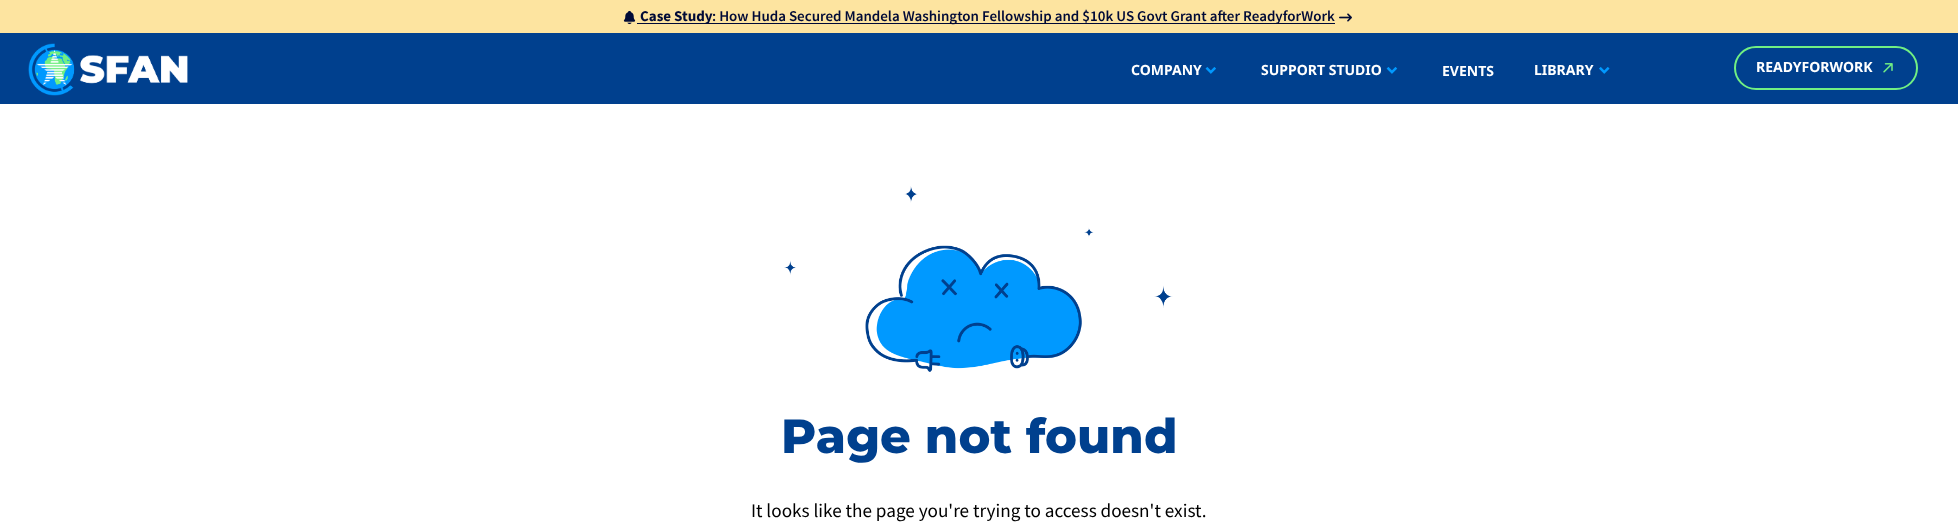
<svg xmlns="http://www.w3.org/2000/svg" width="1958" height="524">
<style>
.a{font:bold 15px Source Sans Pro;fill:#000a37}
.b{font:600 15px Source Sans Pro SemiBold;fill:#000a37}
.c{font:bold 14px Noto Sans;fill:#fff}
.d{font:800 48px Montserrat;fill:#00408e}
.e{font:19.2px Source Sans Pro;fill:#000}
</style>
<rect width="100%" height="100%" fill="#fff"/>
<path fill="#fde4a0" d="M0 0h1958v33H0z"/>
<image href="1.png" x="623" y="10" width="13" height="15"/>
<path fill="#000a37" d="M637 23h75v1H637z"/>
<path fill="#000a37" d="M712 23h623v1H712z"/>
<image href="2.png" x="1339" y="13" width="13" height="9"/>
<path fill="#00408e" d="M0 33h1958v71H0z"/>
<image href="3.png" x="28" y="43" width="160" height="53"/>
<image href="4.png" x="1205" y="67" width="11" height="7"/>
<image href="5.png" x="1386" y="67" width="12" height="7"/>
<image href="6.png" x="1599" y="67" width="11" height="7"/>
<rect fill="none" stroke="#71ef83" stroke-width="2" x="1735" y="47" width="182" height="42" rx="21"/>
<image href="7.png" x="1883" y="63" width="10" height="10"/>
<image href="8.png" x="784" y="186" width="389" height="186"/>
<text class="a" x="640" y="21">Case Study</text>
<text class="b" x="712" y="21">: How Huda Secured Mandela Washington Fellowship and $10k US Govt Grant after ReadyforWork</text>
<text class="c" x="1131" y="75">COMPANY</text>
<text class="c" x="1261" y="75">SUPPORT STUDIO</text>
<text class="c" x="1442" y="76">EVENTS</text>
<text class="c" x="1534" y="75">LIBRARY</text>
<text class="c" x="1756" y="72">READYFORWORK</text>
<text class="d" x="781" y="453">Page not found</text>
<text class="e" x="751" y="517">It looks like the page you're trying to access doesn't exist.</text>
</svg>
